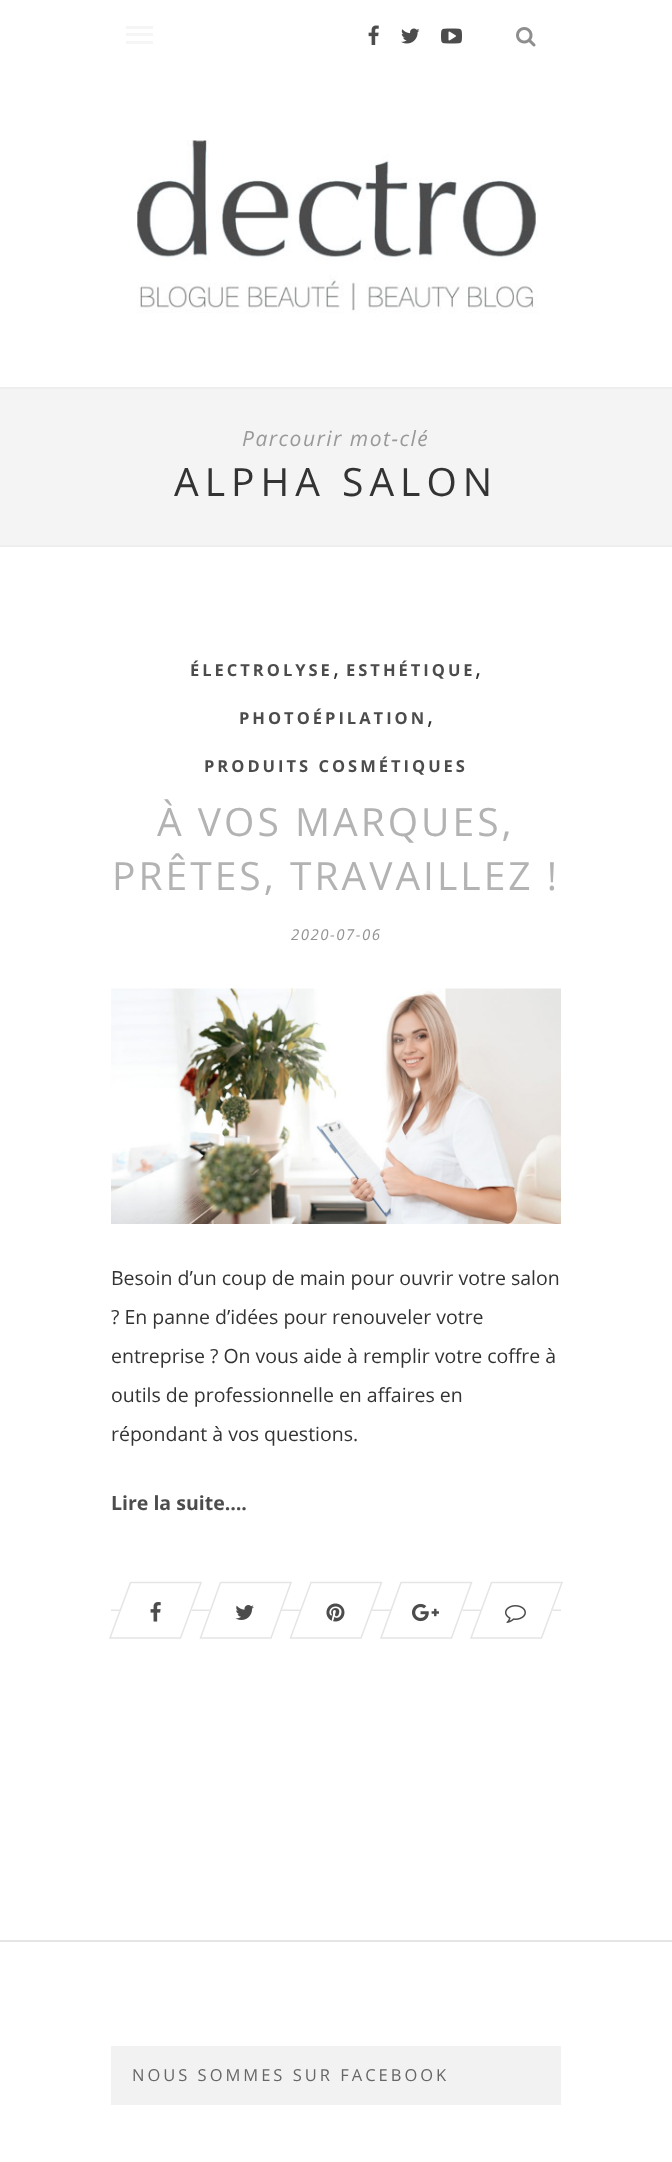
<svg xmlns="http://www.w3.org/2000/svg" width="672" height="2162">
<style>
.a{font:italic 21px Open Sans;letter-spacing:1.5px;fill:#999}
.b{font:39px Open Sans;letter-spacing:6px;fill:#333}
.c{font:bold 16.5px Open Sans;letter-spacing:3px;fill:#4c4c4c}
.d{font:24px Open Sans;fill:#333}
.e{font:39px Open Sans;letter-spacing:3px;fill:#b3b3b3}
.f{font:italic 15px Open Sans;letter-spacing:1.5px;fill:#939393}
.g{font:19.5px Open Sans;fill:#333}
.h{font:bold 19.5px Open Sans;fill:#4c4c4c}
.i{font:16.5px Open Sans;letter-spacing:3px;fill:#666}
</style>
<rect width="100%" height="100%" fill="#fff"/>
<path fill="#f5f5f5" d="M126 26h27v3H126z"/>
<path fill="#f5f5f5" d="M126 33h27v3H126z"/>
<path fill="#f5f5f5" d="M126 41h27v3H126z"/>
<image href="1.png" x="368" y="25" width="11" height="20"/>
<image href="2.png" x="401" y="28" width="19" height="16"/>
<image href="3.png" x="441" y="28" width="21" height="16"/>
<image href="4.png" x="516" y="27" width="20" height="20"/>
<path fill="#eee" d="M0 387h672v2H0z"/>
<image href="5.png" x="137" y="140" width="401" height="173"/>
<path fill="#f4f4f4" d="M0 389h672v156H0z"/>
<path fill="#eee" d="M0 545h672v2H0z"/>
<image href="6.png" x="111" y="988" width="450" height="236"/>
<image href="7.png" x="111" y="1609" width="450" height="2"/>
<path fill="#fff" d="M130 1582h72l-21 57h-72z"/>
<path fill="none" stroke="#e5e5e5" stroke-width="1.5" d="M130.5 1582.5h70.5l-20.5 55.5h-70.5z"/>
<image href="8.png" x="150" y="1602" width="11" height="20"/>
<path fill="#fff" d="M220 1582h72l-21 57h-72z"/>
<path fill="none" stroke="#e5e5e5" stroke-width="1.5" d="M220.5 1582.5h70.5l-20 55.5h-70.5z"/>
<image href="9.png" x="235" y="1605" width="19" height="15"/>
<path fill="#fff" d="M310 1582h72l-20 57h-72z"/>
<path fill="none" stroke="#e5e5e5" stroke-width="1.5" d="M311 1582.5h70.5l-20.5 55.5h-70.5z"/>
<image href="10.png" x="326" y="1603" width="19" height="19"/>
<path fill="#fff" d="M401 1582h72l-21 57h-72z"/>
<path fill="none" stroke="#e5e5e5" stroke-width="1.5" d="M401 1582.5h70.5l-20 55.5h-70.5z"/>
<image href="11.png" x="411" y="1603" width="28" height="19"/>
<path fill="#fff" d="M491 1582h72l-21 57h-72z"/>
<path fill="none" stroke="#e5e5e5" stroke-width="1.5" d="M491.5 1582.5h70.5l-20.5 55.5h-70.5z"/>
<image href="12.png" x="505" y="1605" width="21" height="18"/>
<path fill="#e5e5e5" d="M0 1940h672v2H0z"/>
<path fill="#f2f2f2" d="M111 2046h450v59H111z"/>
<text class="a" x="242" y="446">Parcourir mot-clé</text>
<text class="b" x="174" y="496">ALPHA SALON</text>
<text class="c" x="190" y="676">ÉLECTROLYSE</text>
<text class="d" x="333" y="676">,</text>
<text class="c" x="346" y="676">ESTHÉTIQUE</text>
<text class="d" x="475" y="676">,</text>
<text class="c" x="239" y="724">PHOTOÉPILATION</text>
<text class="d" x="427" y="724">,</text>
<text class="c" x="204" y="772">PRODUITS COSMÉTIQUES</text>
<text class="e" x="157" y="836">À VOS MARQUES,</text>
<text class="e" x="112" y="890">PRÊTES, TRAVAILLEZ !</text>
<text class="f" x="291" y="940">2020-07-06</text>
<text class="g" x="111" y="1285">Besoin d’un coup de main pour ouvrir votre salon</text>
<text class="g" x="111" y="1324">? En panne d’idées pour renouveler votre</text>
<text class="g" x="111" y="1363">entreprise ? On vous aide à remplir votre coffre à</text>
<text class="g" x="111" y="1402">outils de professionnelle en affaires en</text>
<text class="g" x="111" y="1441">répondant à vos questions.</text>
<text class="h" x="111" y="1510">Lire la suite….</text>
<text class="i" x="132" y="2081">NOUS SOMMES SUR FACEBOOK</text>
</svg>
